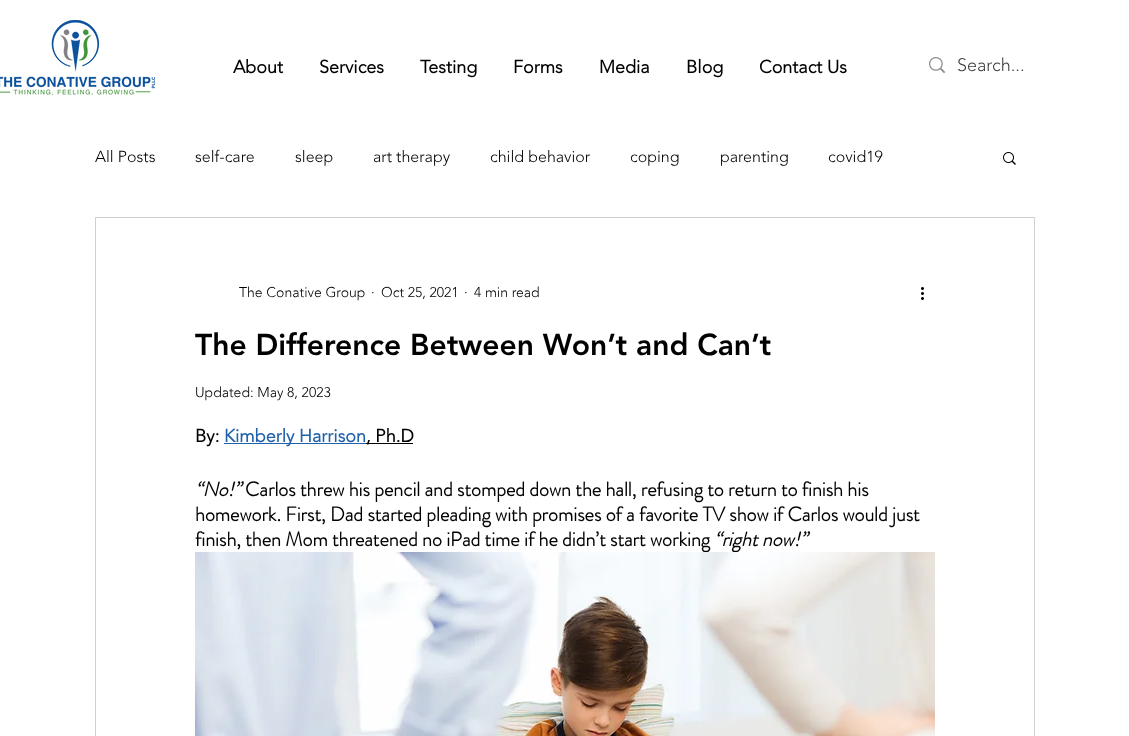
<svg xmlns="http://www.w3.org/2000/svg" width="1129" height="736">
<style>
.a{font:bold 18px 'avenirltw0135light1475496';fill:#000}
.b{font:300 18px 'avenirltw0135light1475496';fill:#404040}
.c{font:300 16px 'avenirltw0135light1475496';fill:#000}
.d{font:300 14px 'avenirltw0135light1475496';fill:#000}
.e{font:900 30px 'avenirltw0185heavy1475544';fill:#000}
.f{font:bold 18px 'avenirltw0135light1475496';fill:#2062ab}
.g{font:italic bold 20px 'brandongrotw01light';fill:#000}
.h{font:bold 20px 'brandongrotw01light';fill:#000}
</style>
<rect width="100%" height="100%" fill="#fff"/>
<image href="1.png" x="0" y="20" width="155" height="75"/>
<image href="2.png" x="929" y="57" width="16" height="17"/>
<image href="3.png" x="1003" y="152" width="13" height="13"/>
<path fill="none" stroke="#cfcfcf" d="M95.5 217.5h939v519H95.5z"/>
<image href="4.png" x="921" y="287" width="3" height="13"/>
<path fill="#2062ab" d="M224 443h142v1H224z"/>
<path fill="#000" d="M366 443h47v1H366z"/>
<text class="a" x="233" y="73">About</text>
<text class="a" x="319" y="73">Services</text>
<text class="a" x="420" y="73">Testing</text>
<text class="a" x="513" y="73">Forms</text>
<text class="a" x="599" y="73">Media</text>
<text class="a" x="686" y="73">Blog</text>
<text class="a" x="759" y="73">Contact Us</text>
<text class="b" x="957" y="71">Search...</text>
<text class="c" x="95" y="162">All Posts</text>
<text class="c" x="195" y="162">self-care</text>
<text class="c" x="295" y="162">sleep</text>
<text class="c" x="373" y="162">art therapy</text>
<text class="c" x="490" y="162">child behavior</text>
<text class="c" x="630" y="162">coping</text>
<text class="c" x="720" y="162">parenting</text>
<text class="c" x="828" y="162">covid19</text>
<text class="d" x="239" y="297">The Conative Group</text>
<text class="d" x="371" y="297">·</text>
<text class="d" x="381" y="297">Oct 25, 2021</text>
<text class="d" x="464" y="297">·</text>
<text class="d" x="474" y="297">4 min read</text>
<text class="e" x="195" y="355">The Difference Between Won’t and Can’t</text>
<text class="d" x="195" y="397">Updated: May 8, 2023</text>
<text class="a" x="195" y="442">By:</text>
<text class="f" x="224" y="442">Kimberly Harrison</text>
<text class="a" x="366" y="442">, Ph.D</text>
<text class="g" x="195" y="496">“No!”</text>
<text class="h" x="245" y="496">Carlos threw his pencil and stomped down the hall, refusing to return to finish his</text>
<text class="h" x="195" y="521">homework. First, Dad started pleading with promises of a favorite TV show if Carlos would just</text>
<text class="h" x="195" y="546">finish, then Mom threatened no iPad time if he didn’t start working</text>
<text class="g" x="714" y="546">“right now!”</text>
<image href="5.png" x="195" y="552" width="740" height="184"/>
</svg>
